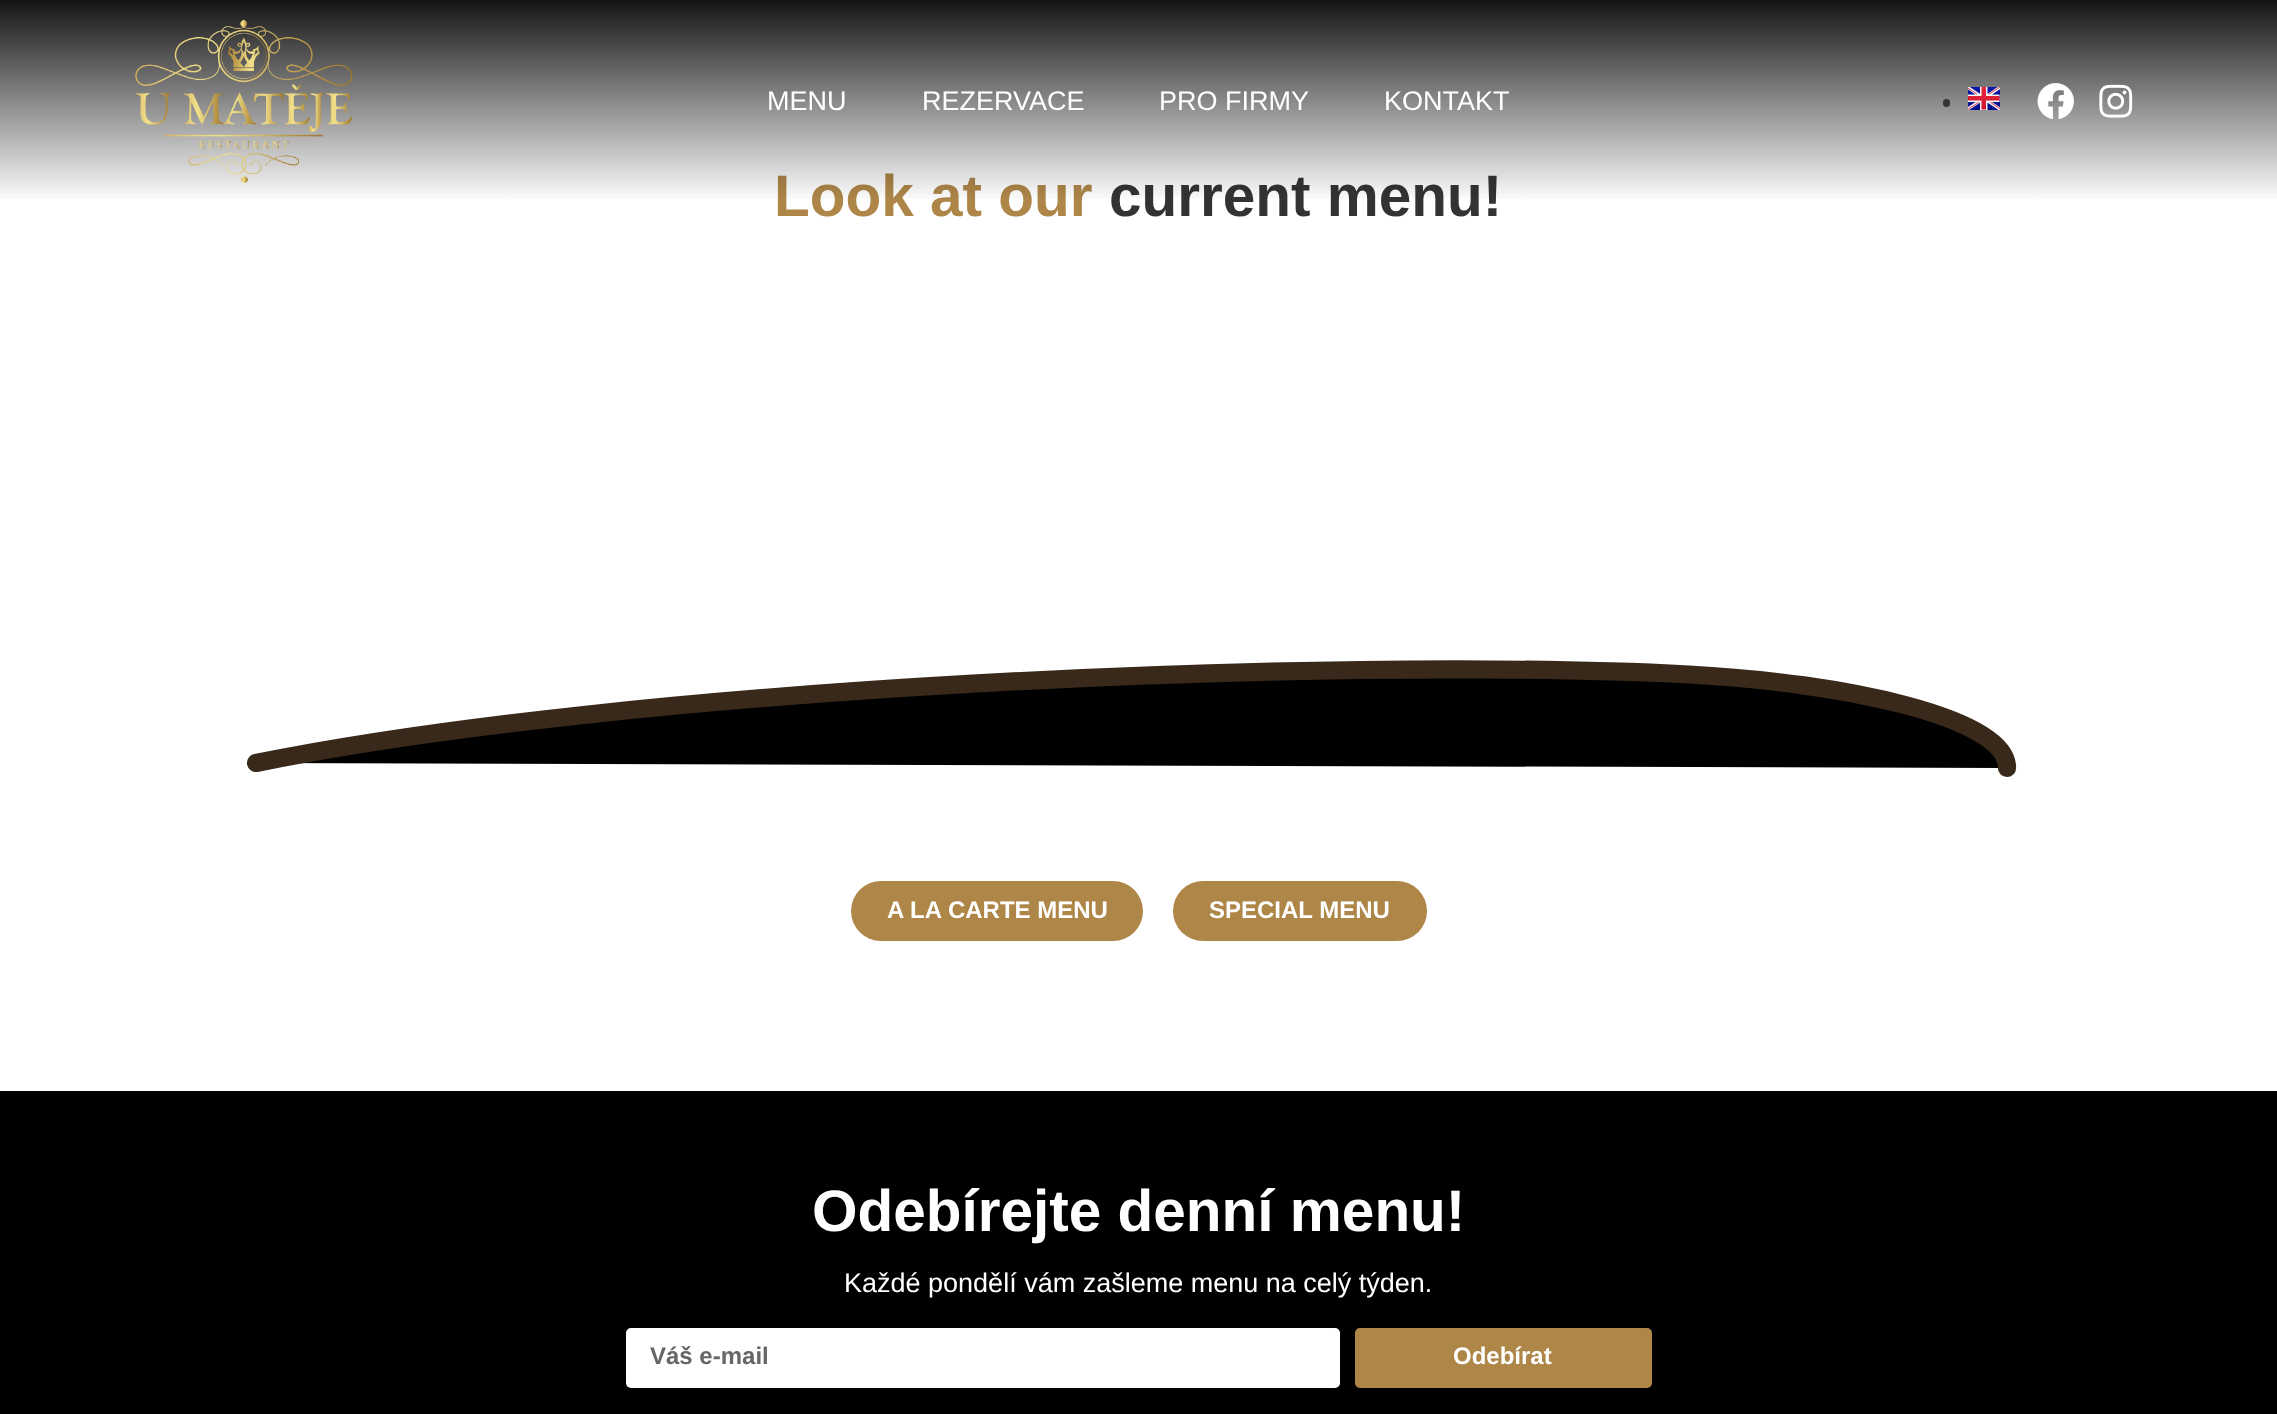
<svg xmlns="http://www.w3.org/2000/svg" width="2277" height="1414">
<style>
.a{font:bold 58.5px Liberation Sans;fill:#ae8648}
.b{font:bold 58.5px Liberation Sans;fill:#333}
.c{font:27px Liberation Sans;fill:#fff}
.d{font:bold 24px Liberation Sans;fill:#fff}
.e{font:bold 58.5px Liberation Sans;fill:#fff}
.f{font:bold 24px Liberation Sans;fill:#666}
</style>
<defs>
<linearGradient id="g1" gradientUnits="userSpaceOnUse" x1="1139" y1="0" x2="1139" y2="203"><stop offset="0" stop-color="#141414"/><stop offset="1" stop-color="#141414" stop-opacity="0"/></linearGradient>
</defs>
<rect width="100%" height="100%" fill="#fff"/>
<path fill="#000" d="M256 763c369-75 1065-107 1433-89c153 8 319 43 318 94"/>
<path fill="none" stroke="#38291a" stroke-width="18.2" stroke-linecap="round" stroke-linejoin="round" d="M256 763c369-75 1064.5-107 1433-88.5c153.5 8 319 43 318 93.5"/>
<rect fill="#ae8648" x="851" y="881" width="292" height="60" rx="30"/>
<rect fill="#ae8648" x="1173" y="881" width="254" height="60" rx="30"/>
<path fill="#000" d="M0 1091h2277v323H0z"/>
<rect fill="#fff" x="626" y="1328" width="714" height="60" rx="5"/>
<rect fill="#ae8648" x="1355" y="1328" width="297" height="60" rx="5"/>
<text class="a" x="774" y="216">Look at our</text>
<text class="b" x="1109" y="216">current menu!</text>
<path fill="url(#g1)" d="M0 0h2277v199H0z"/>
<image href="4.png" x="2099" y="84" width="34" height="34"/>
<image href="3.png" x="2037" y="83" width="37" height="37"/>
<image href="2.png" x="1968" y="87" width="32" height="23"/>
<rect fill="#333" x="1943" y="99" width="7" height="8" rx="3.5"/>
<text class="c" x="1384" y="110">KONTAKT</text>
<text class="c" x="1159" y="110">PRO FIRMY</text>
<text class="c" x="922" y="110">REZERVACE</text>
<text class="c" x="767" y="110">MENU</text>
<image href="1.png" x="135" y="19" width="218" height="164"/>
<text class="d" x="887" y="918">A LA CARTE MENU</text>
<text class="d" x="1209" y="918">SPECIAL MENU</text>
<text class="e" x="812" y="1231">Odebírejte denní menu!</text>
<text class="c" x="844" y="1292">Každé pondělí vám zašleme menu na celý týden.</text>
<text class="f" x="650" y="1364">Váš e-mail</text>
<text class="d" x="1453" y="1364">Odebírat</text>
</svg>
